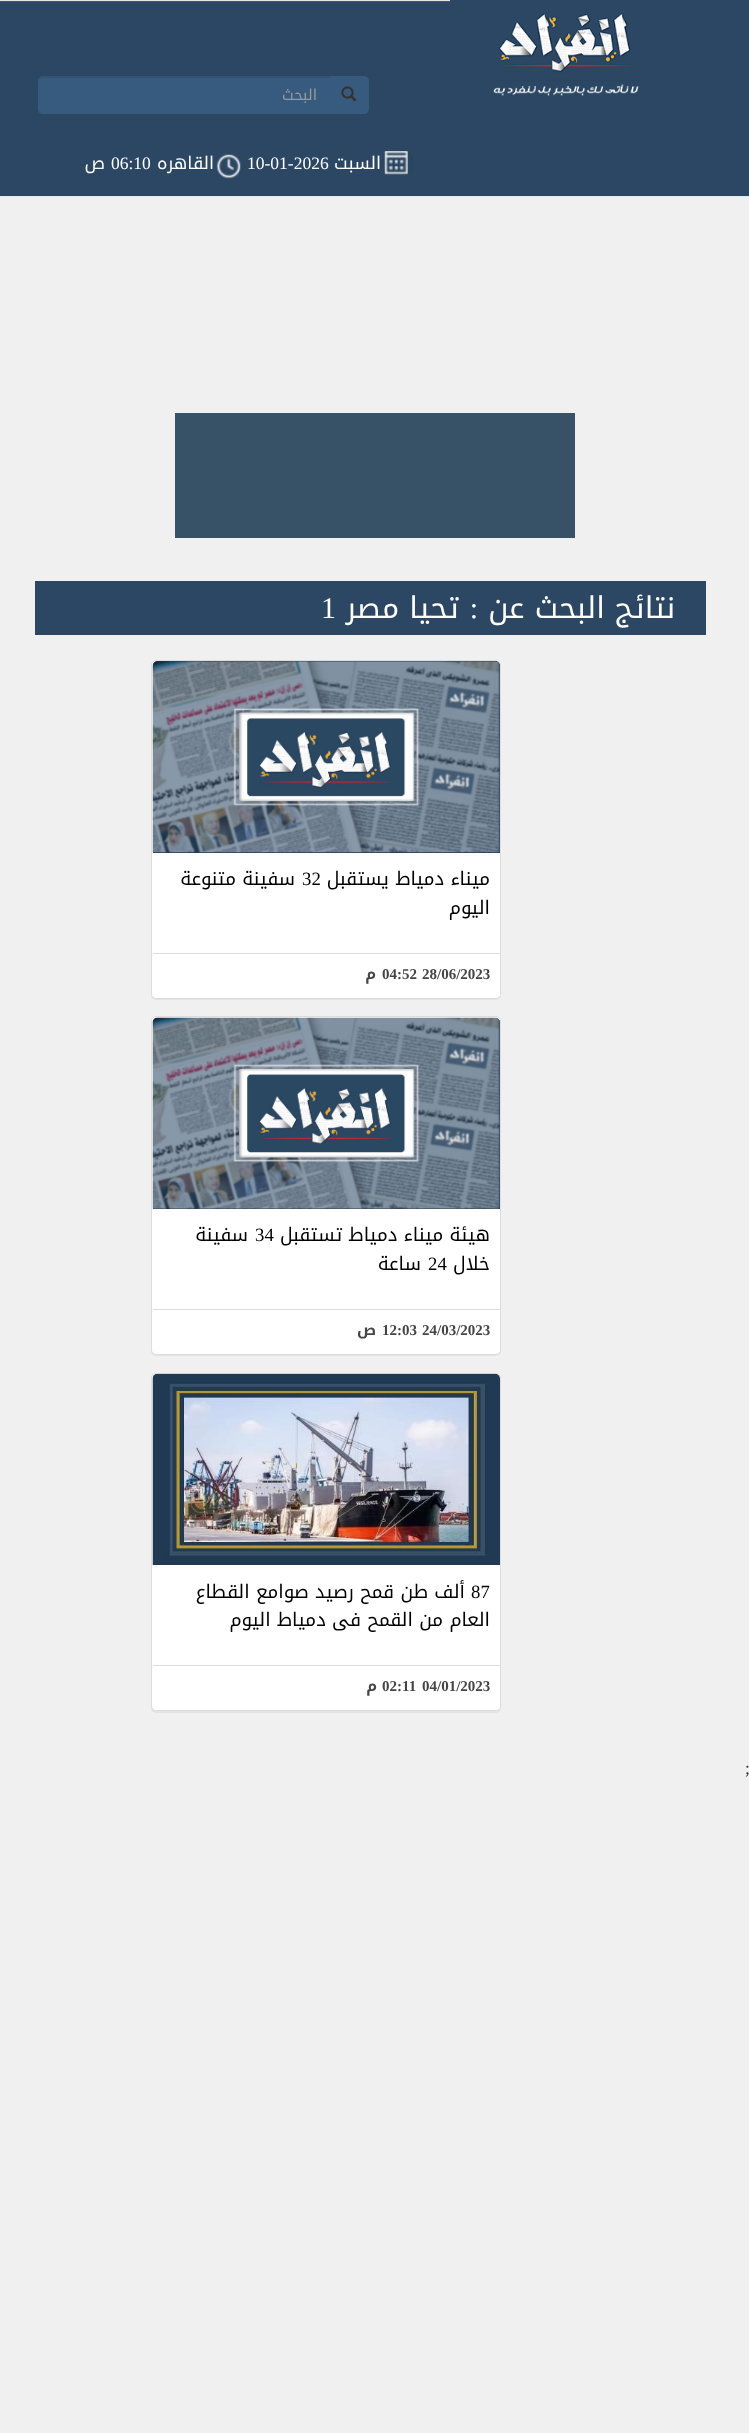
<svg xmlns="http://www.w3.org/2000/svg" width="749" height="2433">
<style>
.a{font:15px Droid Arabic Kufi;direction:rtl;fill:#999}
.b{font:17.5px Droid Arabic Kufi;direction:rtl;fill:#fff}
.c{font:17.5px Liberation Serif;fill:#fff}
.d{font:30px Droid Arabic Kufi;direction:rtl;fill:#fff}
.e{font:30px Liberation Serif;direction:rtl;fill:#fff}
.f{font:30px Liberation Serif;fill:#fff}
.g{font:18.75px Droid Arabic Kufi;direction:rtl;fill:#000}
.h{font:18.75px Liberation Serif;fill:#000}
.i{font:bold 15px Liberation Serif;fill:#464545}
.j{font:bold 15px Droid Arabic Kufi;direction:rtl;fill:#464545}
.k{font:17.5px Liberation Serif;fill:#333}
</style>
<rect width="100%" height="100%" fill="#f0f0f0"/>
<path fill="#2b4763" d="M0 0h749v196H0z"/>
<path fill="#e7e7e7" d="M0 196h749v1H0z"/>
<image href="1.png" x="493" y="0" width="150" height="96"/>
<path fill="#405973" d="M0 1h450v1H0z"/>
<path fill="#e7e7e7" d="M0 0h450v1H0z"/>
<path fill="#375b7e" d="M329 76h35c3 0 5 2 5 5v28c0 3-2 5-5 5h-35z"/>
<image href="2.png" x="341" y="86" width="16" height="16"/>
<path fill="#375b7e" d="M43 76h287v38h-287c-3 0-5-2-5-5v-28c0-3 2-5 5-5z"/>
<path fill="#00000012" d="M42 78h288v-2h-287c-3 0-5 2-5 5v1c0-2 2-4 4-4z"/>
<image href="3.png" x="384" y="151" width="29" height="24"/>
<image href="4.png" x="216" y="154" width="25" height="25"/>
<path fill="#375166" d="M175 413h400v125H175z"/>
<path fill="#2b4763" d="M35 581h671v54H35z"/>
<rect fill="#0000000d" filter="blur(0.5px)" x="151" y="661" width="350" height="339" rx="5"/>
<rect fill="#fff" stroke="#ddd" x="151.5" y="660.5" width="349" height="338" rx="4.5"/>
<path fill="#203a53" d="M158 661h337c3 0 5 2 5 5v187h-347v-187c0-3 2-5 5-5z"/>
<image href="5.png" x="152" y="661" width="348" height="192"/>
<path fill="#fff" d="M153 953h347v41c0 2-2 4-4 4h-339c-2 0-4-2-4-4z"/>
<path fill="#ddd" d="M153 953h347v1H153z"/>
<rect fill="#0000000d" filter="blur(0.5px)" x="151" y="1018" width="350" height="338" rx="5"/>
<rect fill="#fff" stroke="#ddd" x="151.5" y="1016.5" width="349" height="338" rx="4.5"/>
<path fill="#203a53" d="M158 1018h337c3 0 5 2 5 5v186h-347v-186c0-3 2-5 5-5z"/>
<image href="6.png" x="152" y="1017" width="348" height="192"/>
<path fill="#fff" d="M153 1309h347v41c0 2-2 4-4 4h-339c-2 0-4-2-4-4z"/>
<path fill="#ddd" d="M153 1309h347v1H153z"/>
<rect fill="#0000000d" filter="blur(0.5px)" x="151" y="1374" width="350" height="339" rx="5"/>
<rect fill="#fff" stroke="#ddd" x="151.5" y="1373.5" width="349" height="337" rx="4.5"/>
<image href="7.png" x="152" y="1373" width="348" height="192"/>
<path fill="#fff" d="M153 1665h347v41c0 2-2 4-4 4h-339c-2 0-4-2-4-4z"/>
<path fill="#ddd" d="M153 1665h347v1H153z"/>
<text class="a" x="317" y="100">البحث</text>
<text class="b" x="381" y="169">السبت</text>
<text class="c" x="247" y="169">10-01-2026</text>
<text class="b" x="214" y="169">القاهره</text>
<text class="c" x="111" y="169">06:10</text>
<text class="b" x="105" y="169">ص</text>
<text class="d" x="675" y="618">نتائج البحث عن</text>
<text class="e" x="478" y="618">:</text>
<text class="d" x="459" y="618">تحيا مصر</text>
<text class="f" x="321" y="618">1</text>
<text class="g" x="490" y="885">ميناء دمياط يستقبل</text>
<text class="h" x="302" y="885">32</text>
<text class="g" x="295" y="885">سفينة متنوعة</text>
<text class="g" x="490" y="914">اليوم</text>
<text class="i" x="422" y="979">28/06/2023</text>
<text class="i" x="382" y="979">04:52</text>
<text class="j" x="376" y="979">م</text>
<text class="g" x="490" y="1241">هيئة ميناء دمياط تستقبل</text>
<text class="h" x="255" y="1241">34</text>
<text class="g" x="248" y="1241">سفينة</text>
<text class="g" x="490" y="1270">خلال</text>
<text class="h" x="428" y="1270">24</text>
<text class="g" x="421" y="1270">ساعة</text>
<text class="i" x="422" y="1335">24/03/2023</text>
<text class="i" x="382" y="1335">12:03</text>
<text class="j" x="376" y="1335">ص</text>
<text class="h" x="471" y="1598">87</text>
<text class="g" x="465" y="1598">ألف طن قمح رصيد صوامع القطاع</text>
<text class="g" x="490" y="1626">العام من القمح فى دمياط اليوم</text>
<text class="i" x="422" y="1691">04/01/2023</text>
<text class="i" x="382" y="1691">02:11</text>
<text class="j" x="377" y="1691">م</text>
<text class="k" x="745" y="1774">;</text>
</svg>
